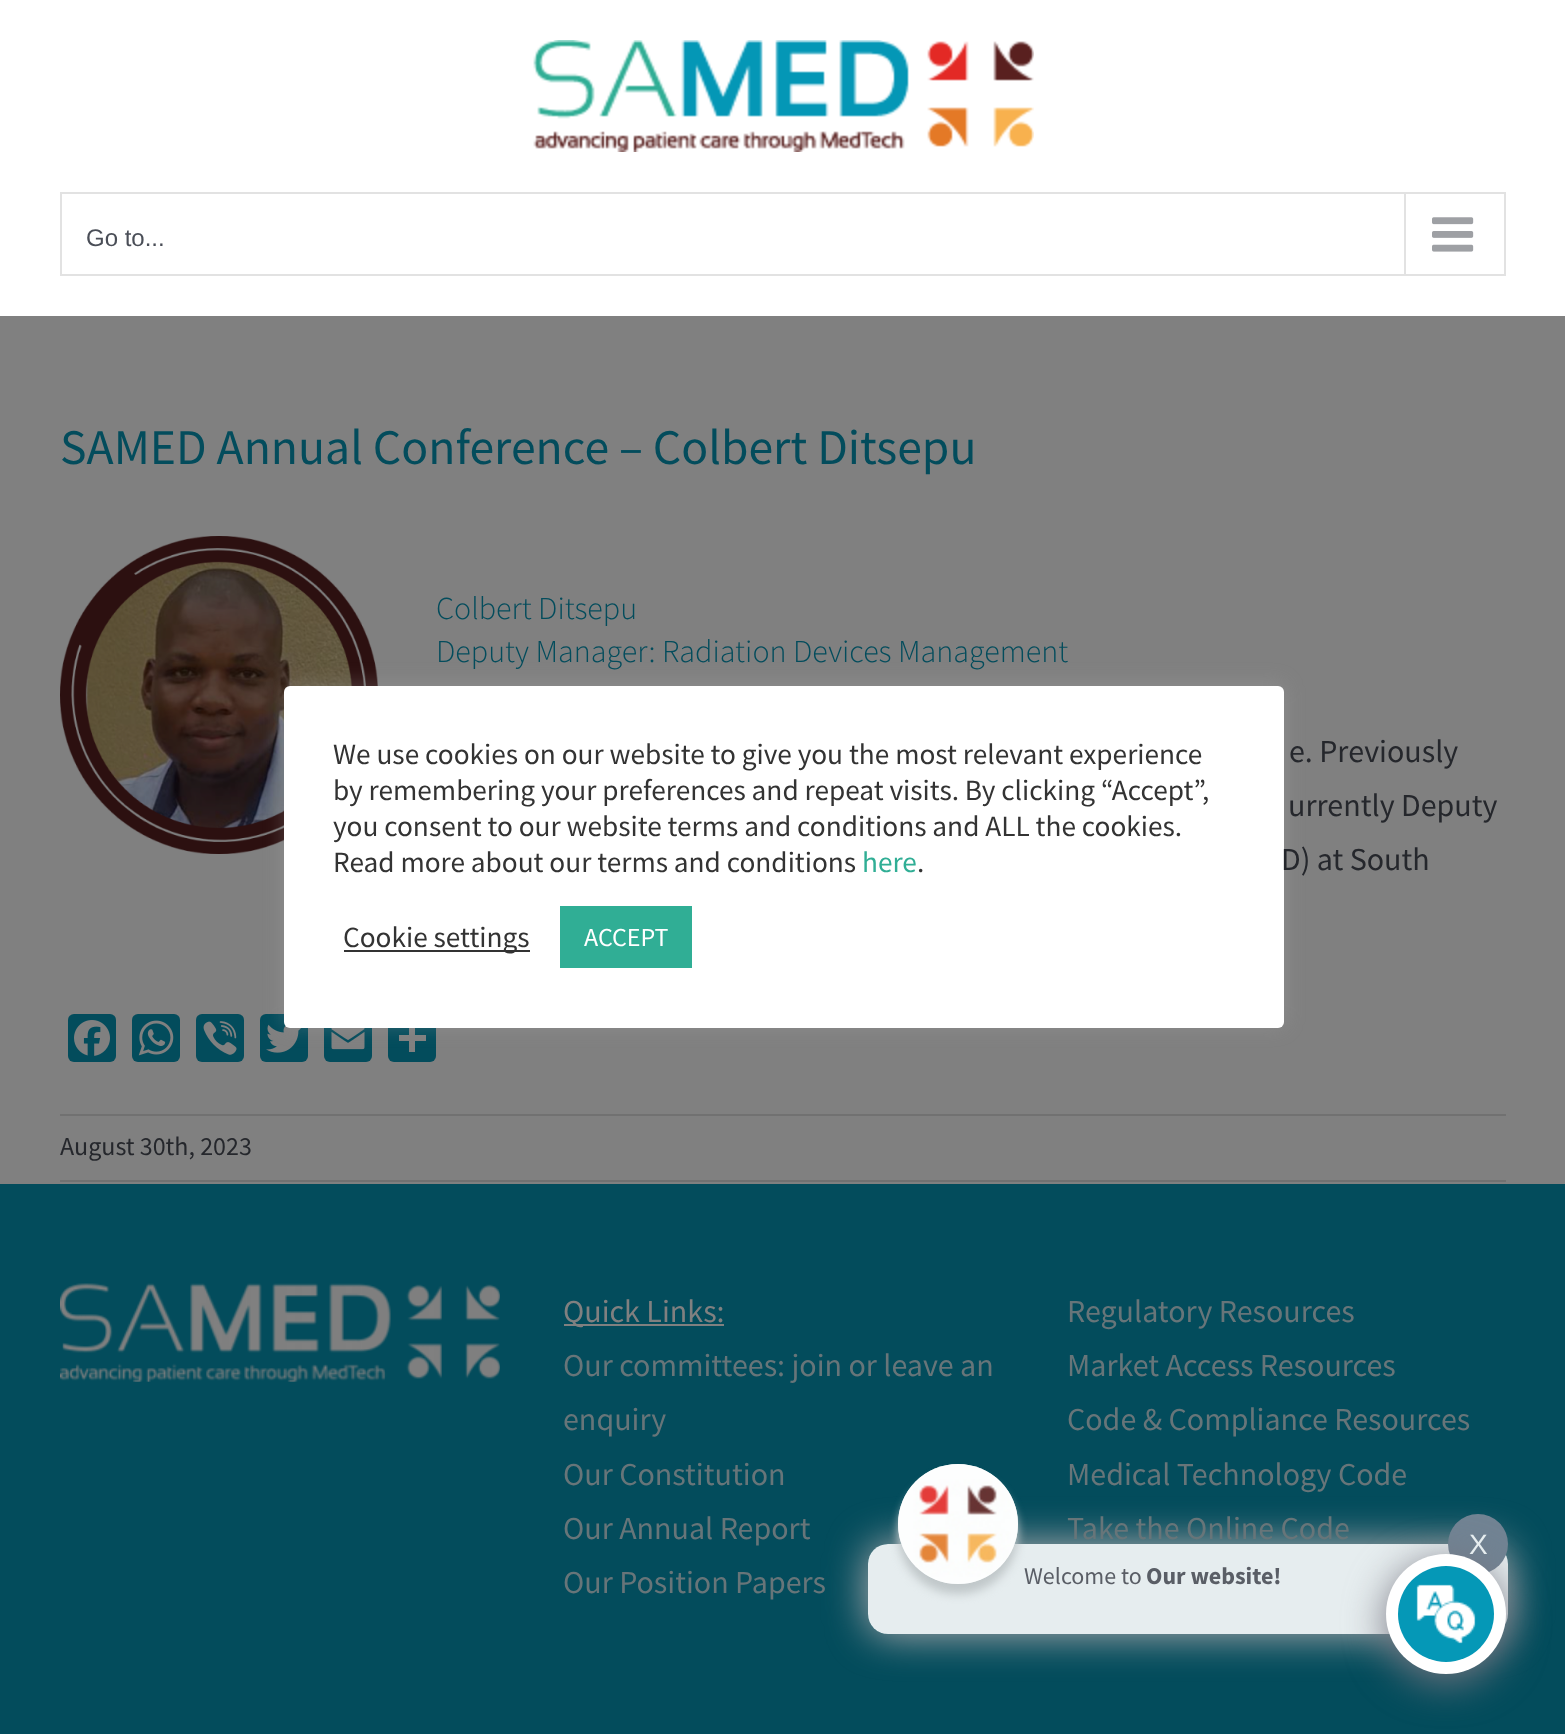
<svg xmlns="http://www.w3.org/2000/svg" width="1565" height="1734">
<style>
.a{font:24px Liberation Sans;fill:#4a4e57}
.b{font:49.75px Source Sans Pro;fill:#034c5c}
.c{font:300 32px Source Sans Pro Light;fill:#034c5c}
.d{font:32px Source Sans Pro;fill:#25272c}
.e{font:26px Source Sans Pro;fill:#25272c}
.f{font:32px Source Sans Pro;fill:#808080}
.g{font:32px Source Sans Pro;fill:#677579}
.h{font:29.3px Source Sans Pro;fill:#333}
.i{font:29.3px Source Sans Pro;fill:#30ae95}
.j{font:26px Source Sans Pro;fill:#fff}
.k{font:28px Liberation Sans;fill:#e6edef}
.l{font:24px Source Sans Pro;fill:#5a5e66}
.m{font:bold 24px Source Sans Pro;fill:#5a5e66}
</style>
<defs>
<clipPath id="clip1"><path d="M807 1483h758v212h-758zm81 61h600c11 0 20 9 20 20v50c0 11-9 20-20 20h-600c-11 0-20-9-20-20v-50c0-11 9-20 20-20z" clip-rule="evenodd"/></clipPath>
</defs>
<rect width="100%" height="100%" fill="#808080"/>
<path fill="#fff" d="M0 0h1565v316H0z"/>
<image href="1.png" x="533" y="40" width="501" height="112"/>
<path fill="none" stroke="#e2e2e2" stroke-width="2" d="M61 193h1444v82H61z"/>
<path fill="#e2e2e2" d="M1404 194h2v80H1404z"/>
<image href="2.png" x="1432" y="217" width="42" height="35"/>
<image href="3.png" x="60" y="536" width="318" height="318"/>
<rect fill="#034c5c" x="68" y="1014" width="48" height="48" rx="6"/>
<image href="4.png" x="74" y="1020" width="36" height="36"/>
<rect fill="#034c5c" x="132" y="1014" width="48" height="48" rx="6"/>
<image href="5.png" x="138" y="1020" width="36" height="36"/>
<rect fill="#034c5c" x="196" y="1014" width="48" height="48" rx="6"/>
<image href="6.png" x="203" y="1021" width="34" height="34"/>
<rect fill="#034c5c" x="260" y="1014" width="48" height="48" rx="6"/>
<image href="7.png" x="266" y="1024" width="35" height="29"/>
<rect fill="#034c5c" x="324" y="1014" width="48" height="48" rx="6"/>
<image href="8.png" x="331" y="1028" width="34" height="22"/>
<rect fill="#034c5c" x="388" y="1014" width="48" height="48" rx="6"/>
<path fill="#808080" d="M409 1025h6v27H409z"/>
<path fill="#808080" d="M399 1035h27v6H399z"/>
<path fill="#717171" d="M60 1114h1446v2H60z"/>
<path fill="#717171" d="M60 1180h1446v2H60z"/>
<path fill="#034c5c" d="M0 1184h1565v550H0z"/>
<image href="9.png" x="60" y="1283" width="440" height="99"/>
<path fill="#808080" d="M564 1324h160v2H564z"/>
<rect fill="#acabab4d" filter="blur(10px)" x="284" y="684" width="1000" height="342" rx="6"/>
<rect fill="#fff" x="284" y="686" width="1000" height="342" rx="6"/>
<path fill="#333" d="M344 950h186v2H344z"/>
<path fill="#30ae95" d="M560 906h132v62H560z"/>
<g clip-path="url(#clip1)">
<rect fill="#cebdbde6" filter="blur(20px)" x="868" y="1544" width="640" height="90" rx="20"/>
</g>
<rect fill="#ffffffe6" x="868" y="1544" width="640" height="90" rx="20"/>
<circle fill="#718393" cx="1478" cy="1544" r="30"/>
<rect fill="#767580" filter="blur(20px)" x="1386" y="1562" width="120" height="120" rx="60"/>
<circle fill="#fff" cx="1446" cy="1614" r="60"/>
<image href="10.png" x="1398" y="1566" width="96" height="96"/>
<rect fill="#c0c7c9" filter="blur(5px)" x="898" y="1474" width="120" height="120" rx="60"/>
<circle fill="#e6edef" cx="958" cy="1524" r="60"/>
<image href="11.png" x="898" y="1464" width="120" height="120"/>
<text class="a" x="86" y="246">Go to...</text>
<text class="b" x="60" y="464">SAMED Annual Conference – Colbert Ditsepu</text>
<text class="c" x="436" y="619">Colbert Ditsepu</text>
<text class="c" x="436" y="662">Deputy Manager: Radiation Devices Management</text>
<text class="d" x="1289" y="762">e. Previously</text>
<text class="d" x="1288" y="816">urrently Deputy</text>
<text class="d" x="1281" y="870">D) at South</text>
<text class="e" x="60" y="1155">August 30th, 2023</text>
<text class="f" x="563" y="1322">Quick Links:</text>
<text class="g" x="563" y="1376">Our committees: join or leave an</text>
<text class="g" x="563" y="1430">enquiry</text>
<text class="g" x="563" y="1485">Our Constitution</text>
<text class="g" x="563" y="1539">Our Annual Report</text>
<text class="g" x="563" y="1593">Our Position Papers</text>
<text class="g" x="1067" y="1322">Regulatory Resources</text>
<text class="g" x="1067" y="1376">Market Access Resources</text>
<text class="g" x="1067" y="1430">Code &amp; Compliance Resources</text>
<text class="g" x="1067" y="1485">Medical Technology Code</text>
<text class="g" x="1067" y="1539">Take the Online Code</text>
<text class="h" x="333" y="764">We use cookies on our website to give you the most relevant experience</text>
<text class="h" x="333" y="800">by remembering your preferences and repeat visits. By clicking “Accept”,</text>
<text class="h" x="333" y="836">you consent to our website terms and conditions and ALL the cookies.</text>
<text class="h" x="333" y="872">Read more about our terms and conditions</text>
<text class="i" x="862" y="872">here</text>
<text class="h" x="917" y="872">.</text>
<text class="h" x="343" y="947">Cookie settings</text>
<text class="j" x="584" y="946">ACCEPT</text>
<text class="k" x="1469" y="1554">X</text>
<text class="l" x="1024" y="1584">Welcome to</text>
<text class="m" x="1146" y="1584">Our website!</text>
</svg>
